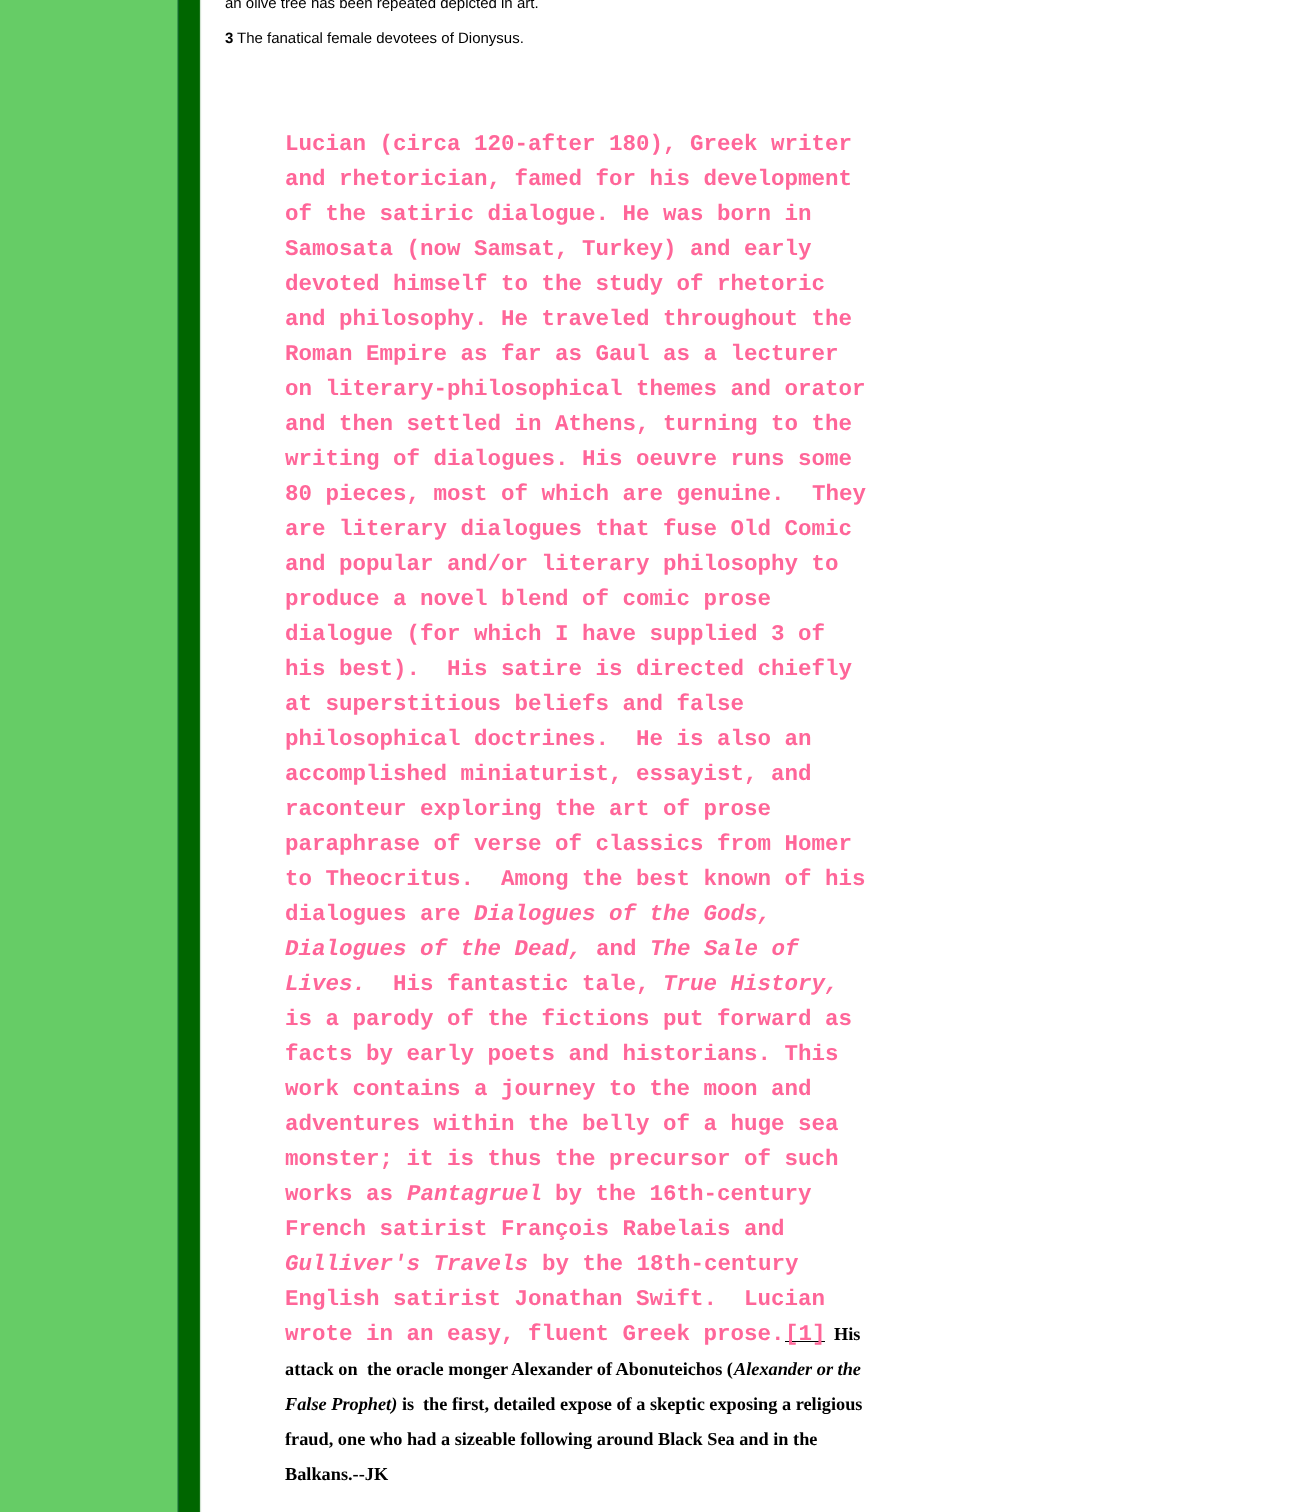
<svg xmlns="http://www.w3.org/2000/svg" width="1294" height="1512">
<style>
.a{font:15px Liberation Sans;fill:#000}
.b{font:bold 15px Liberation Sans;fill:#000}
.c{font:bold 22.5px Liberation Mono;fill:#f69}
.d{font:italic bold 22.5px Liberation Mono;fill:#f69}
.e{font:bold 18.3px Liberation Serif;fill:#000}
.f{font:italic bold 18.3px Liberation Serif;fill:#000}
</style>
<rect width="100%" height="100%" fill="#fff"/>
<image href="1.png" x="0" y="0" width="202" height="1512"/>
<path fill="#000" d="M785 1341h40v1H785z"/>
<text class="a" x="225" y="8">an olive tree has been repeated depicted in art.</text>
<text class="b" x="225" y="43">3</text>
<text class="a" x="237" y="43">The fanatical female devotees of Dionysus.</text>
<text class="c" x="285" y="150">Lucian (circa 120-after 180), Greek writer</text>
<text class="c" x="285" y="185">and rhetorician, famed for his development</text>
<text class="c" x="285" y="220">of the satiric dialogue. He was born in</text>
<text class="c" x="285" y="255">Samosata (now Samsat, Turkey) and early</text>
<text class="c" x="285" y="290">devoted himself to the study of rhetoric</text>
<text class="c" x="285" y="325">and philosophy. He traveled throughout the</text>
<text class="c" x="285" y="360">Roman Empire as far as Gaul as a lecturer</text>
<text class="c" x="285" y="395">on literary-philosophical themes and orator</text>
<text class="c" x="285" y="430">and then settled in Athens, turning to the</text>
<text class="c" x="285" y="465">writing of dialogues. His oeuvre runs some</text>
<text class="c" x="285" y="500">80 pieces, most of which are genuine.</text>
<text class="c" x="812" y="500">They</text>
<text class="c" x="285" y="535">are literary dialogues that fuse Old Comic</text>
<text class="c" x="285" y="570">and popular and/or literary philosophy to</text>
<text class="c" x="285" y="605">produce a novel blend of comic prose</text>
<text class="c" x="285" y="640">dialogue (for which I have supplied 3 of</text>
<text class="c" x="285" y="675">his best).</text>
<text class="c" x="447" y="675">His satire is directed chiefly</text>
<text class="c" x="285" y="710">at superstitious beliefs and false</text>
<text class="c" x="285" y="745">philosophical doctrines.</text>
<text class="c" x="636" y="745">He is also an</text>
<text class="c" x="285" y="780">accomplished miniaturist, essayist, and</text>
<text class="c" x="285" y="815">raconteur exploring the art of prose</text>
<text class="c" x="285" y="850">paraphrase of verse of classics from Homer</text>
<text class="c" x="285" y="885">to Theocritus.</text>
<text class="c" x="501" y="885">Among the best known of his</text>
<text class="c" x="285" y="920">dialogues are</text>
<text class="d" x="474" y="920">Dialogues of the Gods,</text>
<text class="d" x="285" y="955">Dialogues of the Dead,</text>
<text class="c" x="596" y="955">and</text>
<text class="d" x="650" y="955">The Sale of</text>
<text class="d" x="285" y="990">Lives.</text>
<text class="c" x="393" y="990">His fantastic tale,</text>
<text class="d" x="663" y="990">True History,</text>
<text class="c" x="285" y="1025">is a parody of the fictions put forward as</text>
<text class="c" x="285" y="1060">facts by early poets and historians. This</text>
<text class="c" x="285" y="1095">work contains a journey to the moon and</text>
<text class="c" x="285" y="1130">adventures within the belly of a huge sea</text>
<text class="c" x="285" y="1165">monster; it is thus the precursor of such</text>
<text class="c" x="285" y="1200">works as</text>
<text class="d" x="407" y="1200">Pantagruel</text>
<text class="c" x="555" y="1200">by the 16th-century</text>
<text class="c" x="285" y="1235">French satirist François Rabelais and</text>
<text class="d" x="285" y="1270">Gulliver's Travels</text>
<text class="c" x="542" y="1270">by the 18th-century</text>
<text class="c" x="285" y="1305">English satirist Jonathan Swift.</text>
<text class="c" x="744" y="1305">Lucian</text>
<text class="c" x="285" y="1340">wrote in an easy, fluent Greek prose.</text>
<text class="c" x="785" y="1340">[1]</text>
<text class="e" x="834" y="1340">His</text>
<text class="e" x="285" y="1375">attack on</text>
<text class="e" x="367" y="1375">the oracle monger Alexander of Abonuteichos (</text>
<text class="f" x="734" y="1375">Alexander or the</text>
<text class="f" x="285" y="1410">False Prophet)</text>
<text class="e" x="402" y="1410">is</text>
<text class="e" x="423" y="1410">the first, detailed expose of a skeptic exposing a religious</text>
<text class="e" x="285" y="1445">fraud, one who had a sizeable following around Black Sea and in the</text>
<text class="e" x="285" y="1480">Balkans.--JK</text>
</svg>
